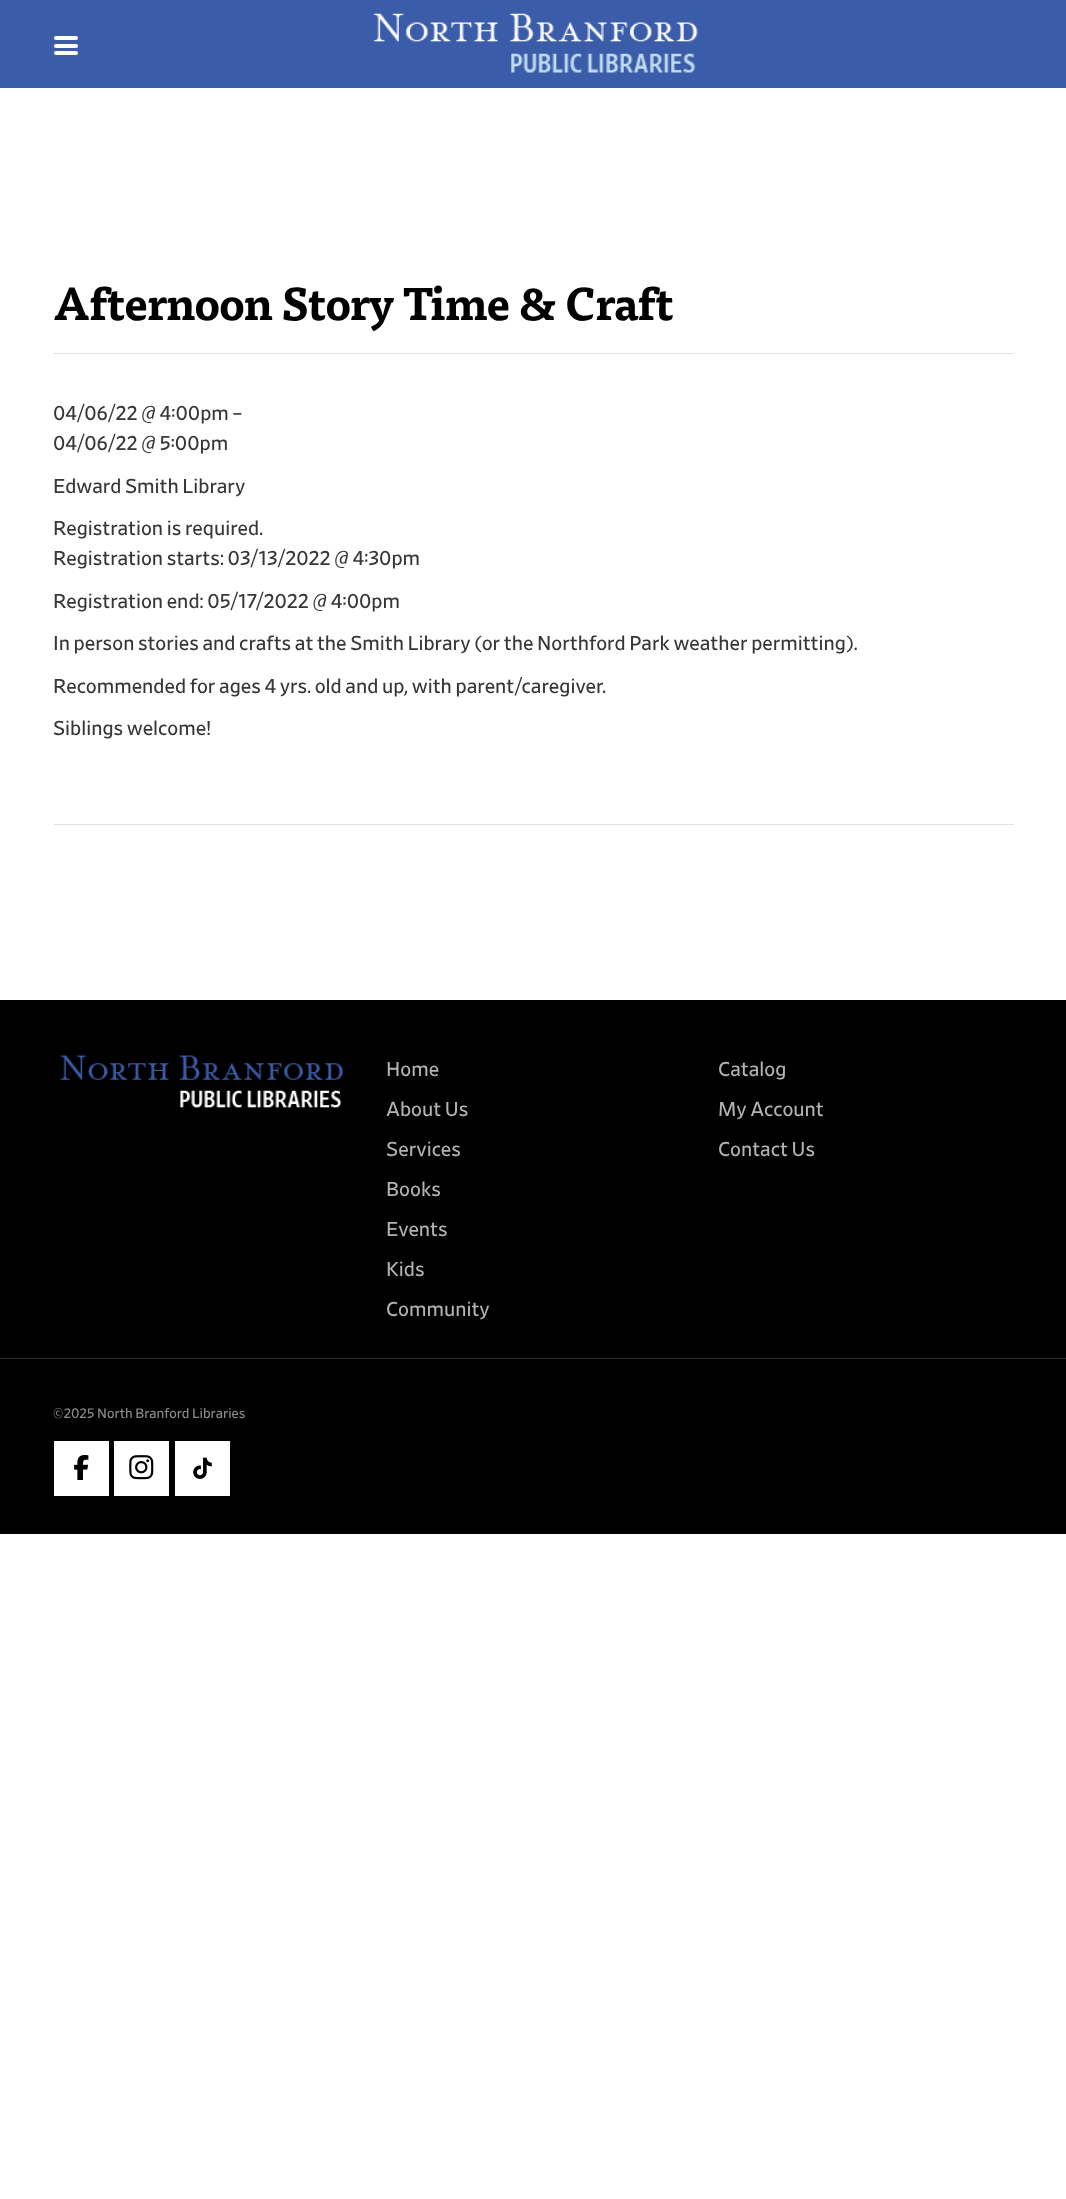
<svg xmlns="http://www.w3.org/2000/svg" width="1066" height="2199">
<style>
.a{font:bold 45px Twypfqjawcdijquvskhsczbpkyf;letter-spacing:-0.9px;fill:#000}
.b{font:20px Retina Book;fill:#373737}
.c{font:20px Retina Book;fill:#b1b2b2}
.d{font:13.75px Retina Book;fill:#8a8a8a}
</style>
<rect width="100%" height="100%" fill="#fff"/>
<path fill="#3b5ca9" d="M0 0h1066v88H0z"/>
<rect fill="#fff" x="54" y="36" width="24" height="4" rx="2"/>
<rect fill="#fff" x="54" y="44" width="24" height="4" rx="2"/>
<rect fill="#fff" x="54" y="51" width="24" height="4" rx="2"/>
<image href="1.png" x="373" y="13" width="325" height="60"/>
<path fill="#e1e1e1" d="M54 824h960v1H54z"/>
<path fill="#e1e1e1" d="M54 353h960v1H54z"/>
<path fill="#000" d="M0 1000h1066v358H0z"/>
<image href="2.png" x="60" y="1055" width="284" height="53"/>
<path fill="#000" d="M0 1359h1066v175H0z"/>
<path fill="#2d2d2d" d="M0 1358h1066v1H0z"/>
<path fill="#fff" d="M54 1441h55v55H54z"/>
<image href="3.png" x="74" y="1455" width="15" height="25"/>
<path fill="#fff" d="M114 1441h55v55H114z"/>
<image href="4.png" x="129" y="1455" width="25" height="25"/>
<path fill="#fff" d="M175 1441h55v55H175z"/>
<image href="5.png" x="193" y="1457" width="19" height="22"/>
<text class="a" x="53" y="320">Afternoon Story Time &amp; Craft</text>
<text class="b" x="53" y="420">04/06/22 @ 4:00pm –</text>
<text class="b" x="53" y="450">04/06/22 @ 5:00pm</text>
<text class="b" x="53" y="493">Edward Smith Library</text>
<text class="b" x="53" y="535">Registration is required.</text>
<text class="b" x="53" y="565">Registration starts: 03/13/2022 @ 4:30pm</text>
<text class="b" x="53" y="608">Registration end: 05/17/2022 @ 4:00pm</text>
<text class="b" x="53" y="650">In person stories and crafts at the Smith Library (or the Northford Park weather permitting).</text>
<text class="b" x="53" y="693">Recommended for ages 4 yrs. old and up, with parent/caregiver.</text>
<text class="b" x="53" y="735">Siblings welcome!</text>
<text class="c" x="386" y="1076">Home</text>
<text class="c" x="386" y="1116">About Us</text>
<text class="c" x="386" y="1156">Services</text>
<text class="c" x="386" y="1196">Books</text>
<text class="c" x="386" y="1236">Events</text>
<text class="c" x="386" y="1276">Kids</text>
<text class="c" x="386" y="1316">Community</text>
<text class="c" x="718" y="1076">Catalog</text>
<text class="c" x="718" y="1116">My Account</text>
<text class="c" x="718" y="1156">Contact Us</text>
<text class="d" x="53" y="1418">©2025 North Branford Libraries</text>
</svg>
